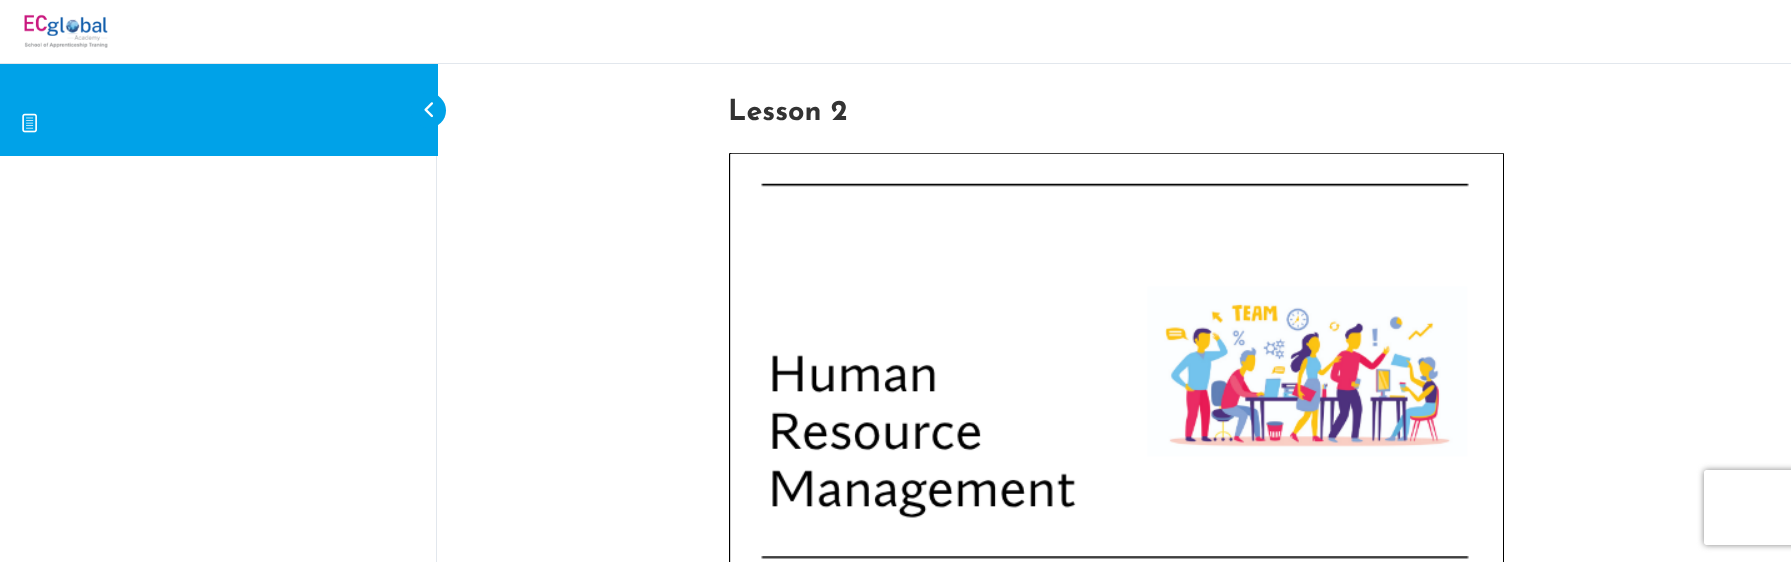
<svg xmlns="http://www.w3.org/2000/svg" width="1791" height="562">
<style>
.a{font:bold 28.75px Josefin Sans;fill:#333}
</style>
<defs>
<clipPath id="clip1"><path d="M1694 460h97v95h-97zm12.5 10h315c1.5 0 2.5 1 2.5 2.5v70c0 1.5-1 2.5-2.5 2.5h-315c-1.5 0-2.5-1-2.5-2.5v-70c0-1.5 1-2.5 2.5-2.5z" clip-rule="evenodd"/></clipPath>
</defs>
<rect width="100%" height="100%" fill="#fff"/>
<path fill="#e2e7ed" d="M436 156h1v406H436z"/>
<path fill="#00a2e8" d="M0 64h438v92H0z"/>
<image href="1.png" x="22" y="113" width="15" height="20"/>
<circle fill="#00a2e8" cx="428.5" cy="110.5" r="17.5"/>
<image href="2.png" x="424" y="102" width="9" height="16"/>
<path fill="#e2e7ed" d="M0 63h1791v1H0z"/>
<image href="3.png" x="24" y="14" width="84" height="34"/>
<path fill="#d3d3d3" d="M730 154h1v408H730z"/>
<path fill="none" stroke="#000" d="M729.5 153.5h774v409H729.5z"/>
<image href="4.png" x="731" y="153" width="772" height="406"/>
<g clip-path="url(#clip1)">
<rect fill="#808080" filter="blur(3px)" x="1704" y="470" width="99" height="75" rx="2.5"/>
</g>
<text class="a" x="728" y="120">Lesson 2</text>
</svg>
